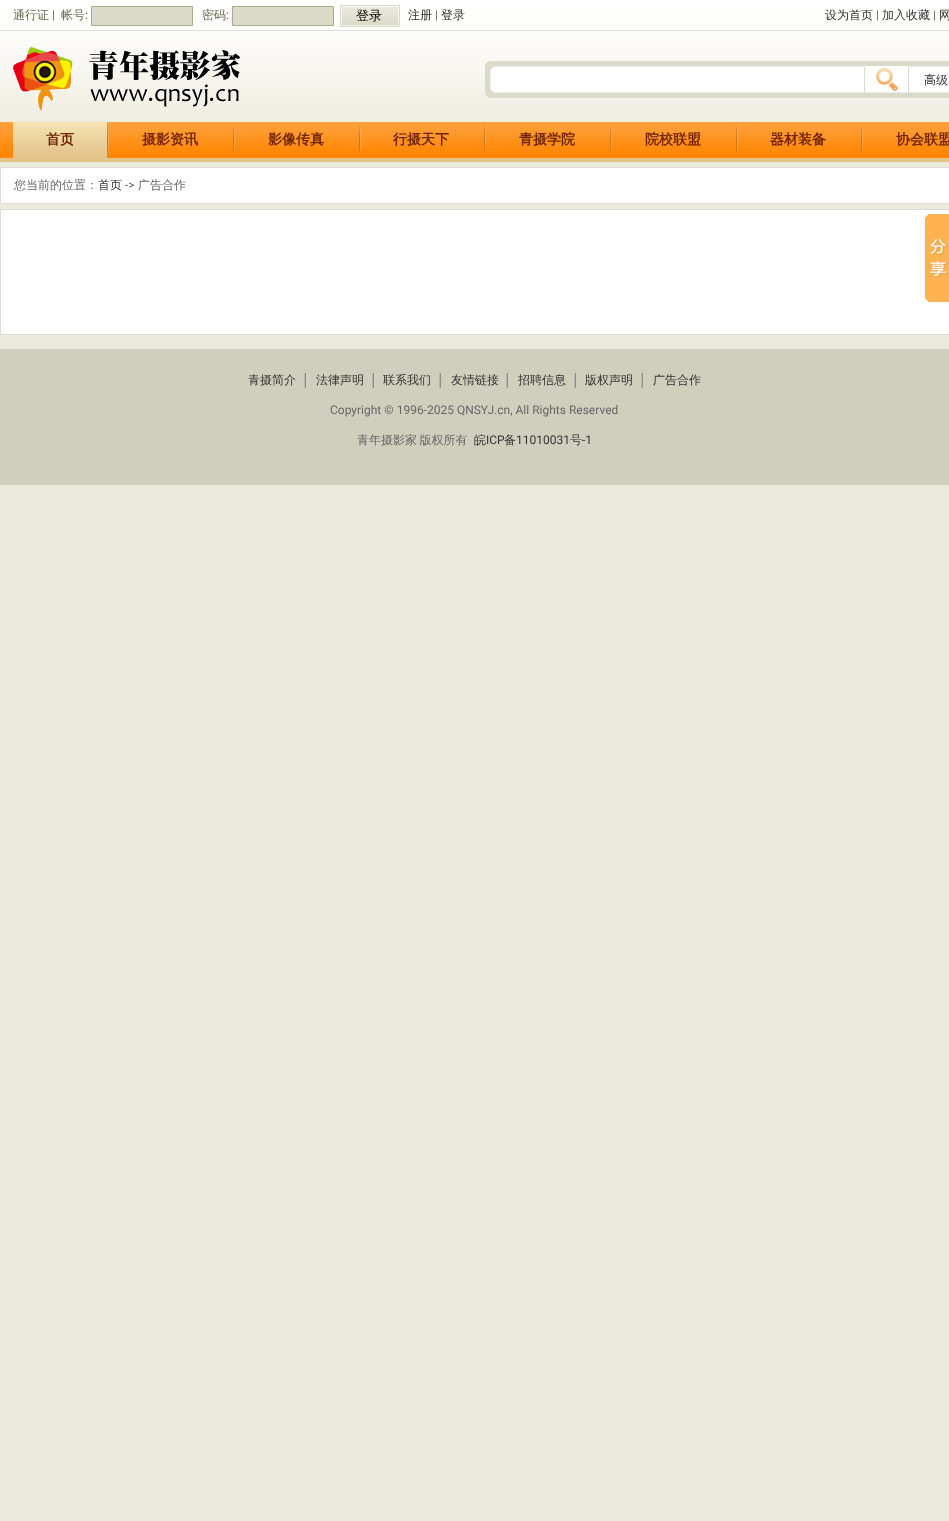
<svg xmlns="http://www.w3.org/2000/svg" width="949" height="1521">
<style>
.a{font:500 12px WenQuanYi Zen Hei;fill:#666650}
.b{font:12px Roboto;fill:#666650}
.c{font:500 13px WenQuanYi Zen Hei;fill:#000}
.d{font:500 12px WenQuanYi Zen Hei;fill:#333}
.e{font:12px Roboto;fill:#666}
.f{font:bold 14px WenQuanYi Zen Hei;fill:#702500}
.g{font:500 12px WenQuanYi Zen Hei;fill:#666}
.h{font:12px Liberation Sans;fill:#666}
.i{font:12px Roboto;fill:#333}
</style>
<rect width="100%" height="100%" fill="#eceadb"/>
<image href="1.png" x="0" y="0" width="949" height="122"/>
<path fill="#dedede" d="M0 30h949v1H0z"/>
<path fill="#dbdac9" stroke="#aa8" d="M91.5 6.5h101v19H91.5z"/>
<path fill="#dbdac9" stroke="#aa8" d="M232.5 6.5h101v19H232.5z"/>
<image href="2.png" x="340" y="5" width="60" height="22"/>
<image href="3.png" x="13" y="47" width="227" height="64"/>
<image href="4.png" x="485" y="61" width="464" height="37"/>
<image href="5.png" x="864" y="66" width="45" height="27"/>
<image href="6.png" x="0" y="122" width="949" height="40"/>
<image href="7.png" x="13" y="122" width="94" height="36"/>
<image href="8.png" x="107" y="123" width="2" height="33"/>
<image href="8.png" x="233" y="123" width="2" height="33"/>
<image href="8.png" x="359" y="123" width="2" height="33"/>
<image href="8.png" x="484" y="123" width="2" height="33"/>
<image href="8.png" x="610" y="123" width="2" height="33"/>
<image href="8.png" x="736" y="123" width="2" height="33"/>
<image href="8.png" x="861" y="123" width="2" height="33"/>
<path fill="#fff" stroke="#dbdbdb" d="M0.5 167.5h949v36H0.5z"/>
<path fill="#fff" stroke="#dbdbdb" d="M0.5 209.5h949v125H0.5z"/>
<image href="9.png" x="925" y="214" width="24" height="88"/>
<path fill="#d0cfbd" d="M0 349h949v136H0z"/>
<text class="a" x="13" y="19">通行证</text>
<text class="b" x="52" y="19">|</text>
<text class="a" x="61" y="19">帐号</text>
<text class="b" x="85" y="19">:</text>
<text class="a" x="202" y="19">密码</text>
<text class="b" x="226" y="19">:</text>
<text class="c" x="356" y="20">登录</text>
<text class="d" x="408" y="19">注册</text>
<text class="b" x="435" y="19">|</text>
<text class="d" x="441" y="19">登录</text>
<text class="d" x="825" y="19">设为首页</text>
<text class="e" x="876" y="19">|</text>
<text class="d" x="882" y="19">加入收藏</text>
<text class="e" x="933" y="19">|</text>
<text class="d" x="939" y="19">网</text>
<text class="d" x="924" y="84">高级</text>
<text class="f" x="46" y="144">首页</text>
<text class="f" x="142" y="144">摄影资讯</text>
<text class="f" x="268" y="144">影像传真</text>
<text class="f" x="393" y="144">行摄天下</text>
<text class="f" x="519" y="144">青摄学院</text>
<text class="f" x="645" y="144">院校联盟</text>
<text class="f" x="770" y="144">器材装备</text>
<text class="f" x="896" y="144">协会联盟</text>
<text class="g" x="14" y="189">您当前的位置：</text>
<text class="d" x="98" y="189">首页</text>
<text class="e" x="125" y="189">-&gt;</text>
<text class="g" x="138" y="189">广告合作</text>
<text class="d" x="248" y="384">青摄简介</text>
<text class="h" x="302" y="384">│</text>
<text class="d" x="316" y="384">法律声明</text>
<text class="h" x="370" y="384">│</text>
<text class="d" x="383" y="384">联系我们</text>
<text class="h" x="437" y="384">│</text>
<text class="d" x="451" y="384">友情链接</text>
<text class="h" x="504" y="384">│</text>
<text class="d" x="518" y="384">招聘信息</text>
<text class="h" x="572" y="384">│</text>
<text class="d" x="585" y="384">版权声明</text>
<text class="h" x="639" y="384">│</text>
<text class="d" x="653" y="384">广告合作</text>
<text class="e" x="330" y="414">Copyright © 1996-2025 QNSYJ.cn, All Rights Reserved</text>
<text class="g" x="357" y="444" word-spacing="-1">青年摄影家 版权所有</text>
<text class="d" x="474" y="444">皖</text>
<text class="i" x="486" y="444">ICP</text>
<text class="d" x="504" y="444">备</text>
<text class="i" x="516" y="444">11010031</text>
<text class="d" x="570" y="444">号</text>
<text class="i" x="582" y="444">-1</text>
</svg>
